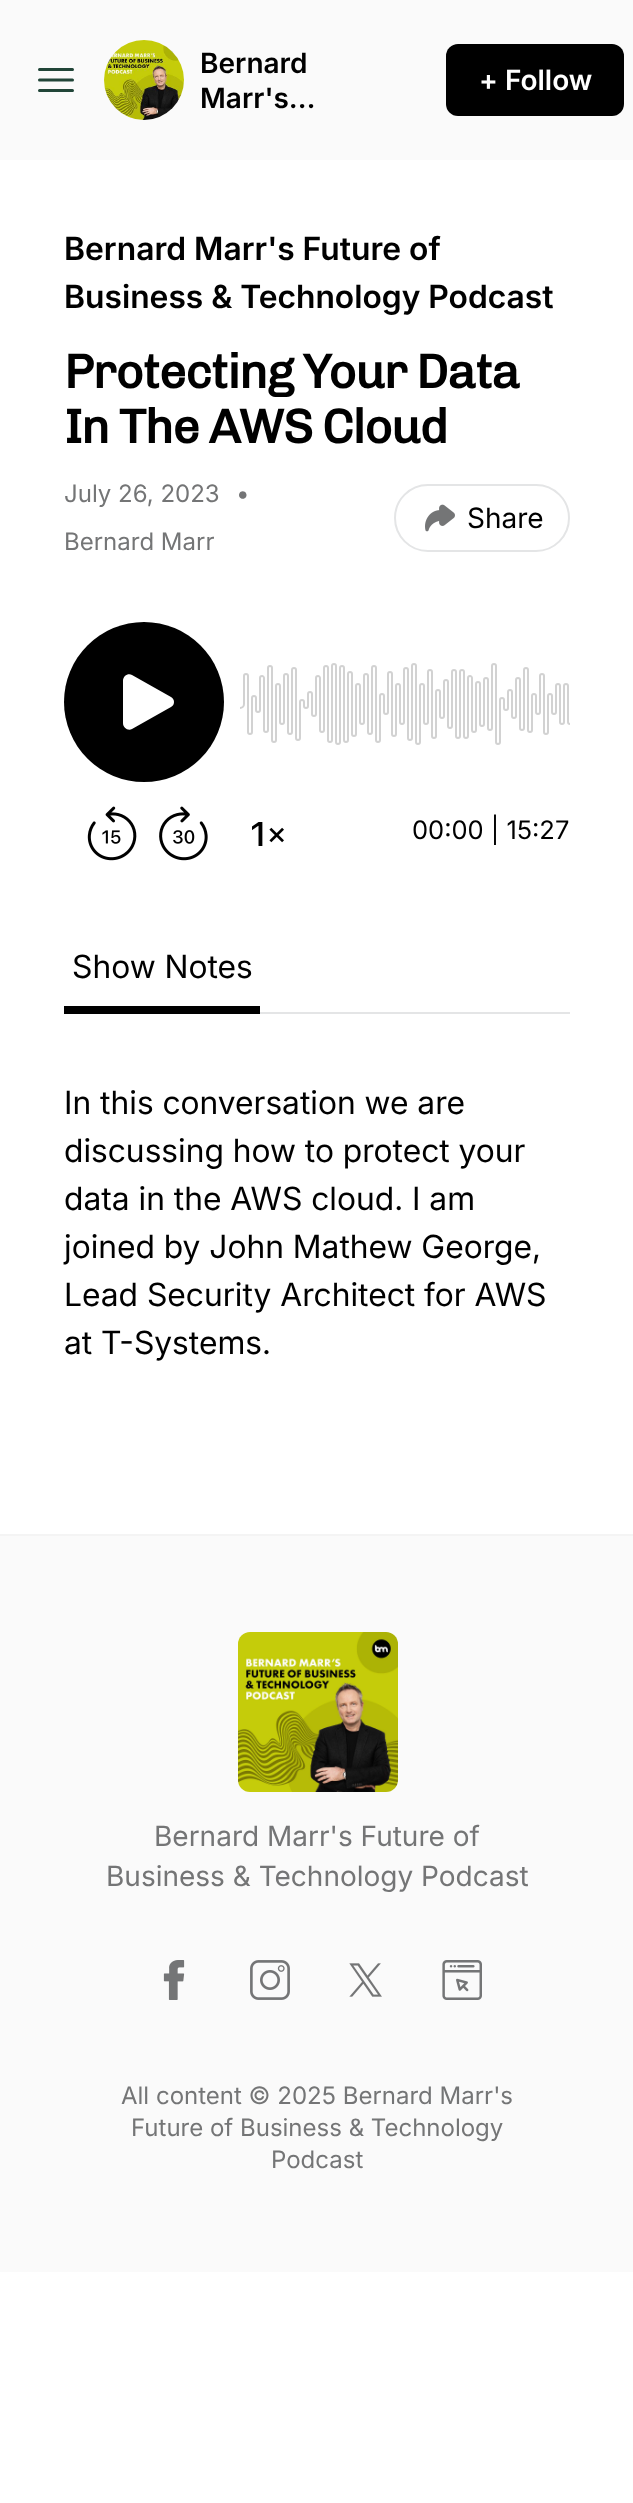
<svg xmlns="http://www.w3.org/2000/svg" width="633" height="2503">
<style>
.a{font:600 28px Inter;fill:#000}
.b{font:600 28px Inter;fill:#fff}
.c{font:600 32px 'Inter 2';fill:#000}
.d{font:bold 48px Chivo;letter-spacing:-1.2px;fill:#000}
.e{font:24px Inter;fill:#747576}
.f{font:28px Inter;fill:#000}
.g{font:25.5px Inter;fill:#000}
.h{font:32px 'Inter 2';fill:#000}
.i{font:28px Inter;fill:#747576}
</style>
<rect width="100%" height="100%" fill="#fff"/>
<path fill="#fafafa" d="M0 0h633v160H0z"/>
<path fill="none" stroke="#214538" stroke-width="3" stroke-linecap="round" stroke-linejoin="round" d="M39.5 69.5h33m-33 10.5h33m-33 10.5h33"/>
<image href="1.png" x="104" y="40" width="80" height="80"/>
<rect fill="#000" x="446" y="44" width="178" height="72" rx="12"/>
<rect fill="none" stroke="#e4e5e6" stroke-width="2" x="395" y="485" width="174" height="66" rx="33"/>
<image href="2.png" x="425" y="504" width="30" height="28"/>
<image href="3.png" x="87" y="806" width="50" height="55"/>
<image href="4.png" x="159" y="806" width="49" height="55"/>
<image href="5.png" x="252" y="822" width="32" height="24"/>
<circle fill="#000" cx="144" cy="702" r="80"/>
<path fill="#fff" fill-rule="evenodd" d="M123 681c0-5 5-8 9-6l39 22c4 2 4 8 0 10l-39 22c-4 2-9-1-9-6z"/>
<image href="6.png" x="240" y="663" width="330" height="82"/>
<path fill="#e4e5e6" d="M260 1012h310v2H260z"/>
<path fill="#000" d="M64 1006h196v8H64z"/>
<path fill="#fafafa" d="M0 1536h633v736H0z"/>
<path fill="#f4f4f4" d="M0 1534h633v2H0z"/>
<image href="7.png" x="238" y="1632" width="160" height="160"/>
<image href="8.png" x="163" y="1960" width="22" height="40"/>
<image href="9.png" x="250" y="1960" width="40" height="40"/>
<image href="10.png" x="349" y="1963" width="33" height="34"/>
<image href="11.png" x="442" y="1960" width="40" height="40"/>
<text class="a" x="200" y="73">Bernard</text>
<text class="a" x="200" y="108">Marr's…</text>
<text class="b" x="479" y="90">+ Follow</text>
<text class="c" x="64" y="260">Bernard Marr's Future of</text>
<text class="c" x="64" y="308">Business &amp; Technology Podcast</text>
<text class="d" x="64" y="388">Protecting Your Data</text>
<text class="d" x="64" y="443">In The AWS Cloud</text>
<text class="e" x="64" y="502">July 26, 2023</text>
<text class="e" x="236" y="502">•</text>
<text class="e" x="64" y="550">Bernard Marr</text>
<text class="f" x="467" y="528">Share</text>
<text class="g" x="412" y="839">00:00 | 15:27</text>
<text class="h" x="72" y="978">Show Notes</text>
<text class="h" x="64" y="1114">In this conversation we are</text>
<text class="h" x="64" y="1162">discussing how to protect your</text>
<text class="h" x="64" y="1210">data in the AWS cloud. I am</text>
<text class="h" x="64" y="1258">joined by John Mathew George,</text>
<text class="h" x="64" y="1306">Lead Security Architect for AWS</text>
<text class="h" x="64" y="1354">at T-Systems.</text>
<text class="i" x="154" y="1846">Bernard Marr's Future of</text>
<text class="i" x="106" y="1886">Business &amp; Technology Podcast</text>
<text class="e" x="121" y="2104">All content © 2025 Bernard Marr's</text>
<text class="e" x="131" y="2136">Future of Business &amp; Technology</text>
<text class="e" x="271" y="2168">Podcast</text>
</svg>
